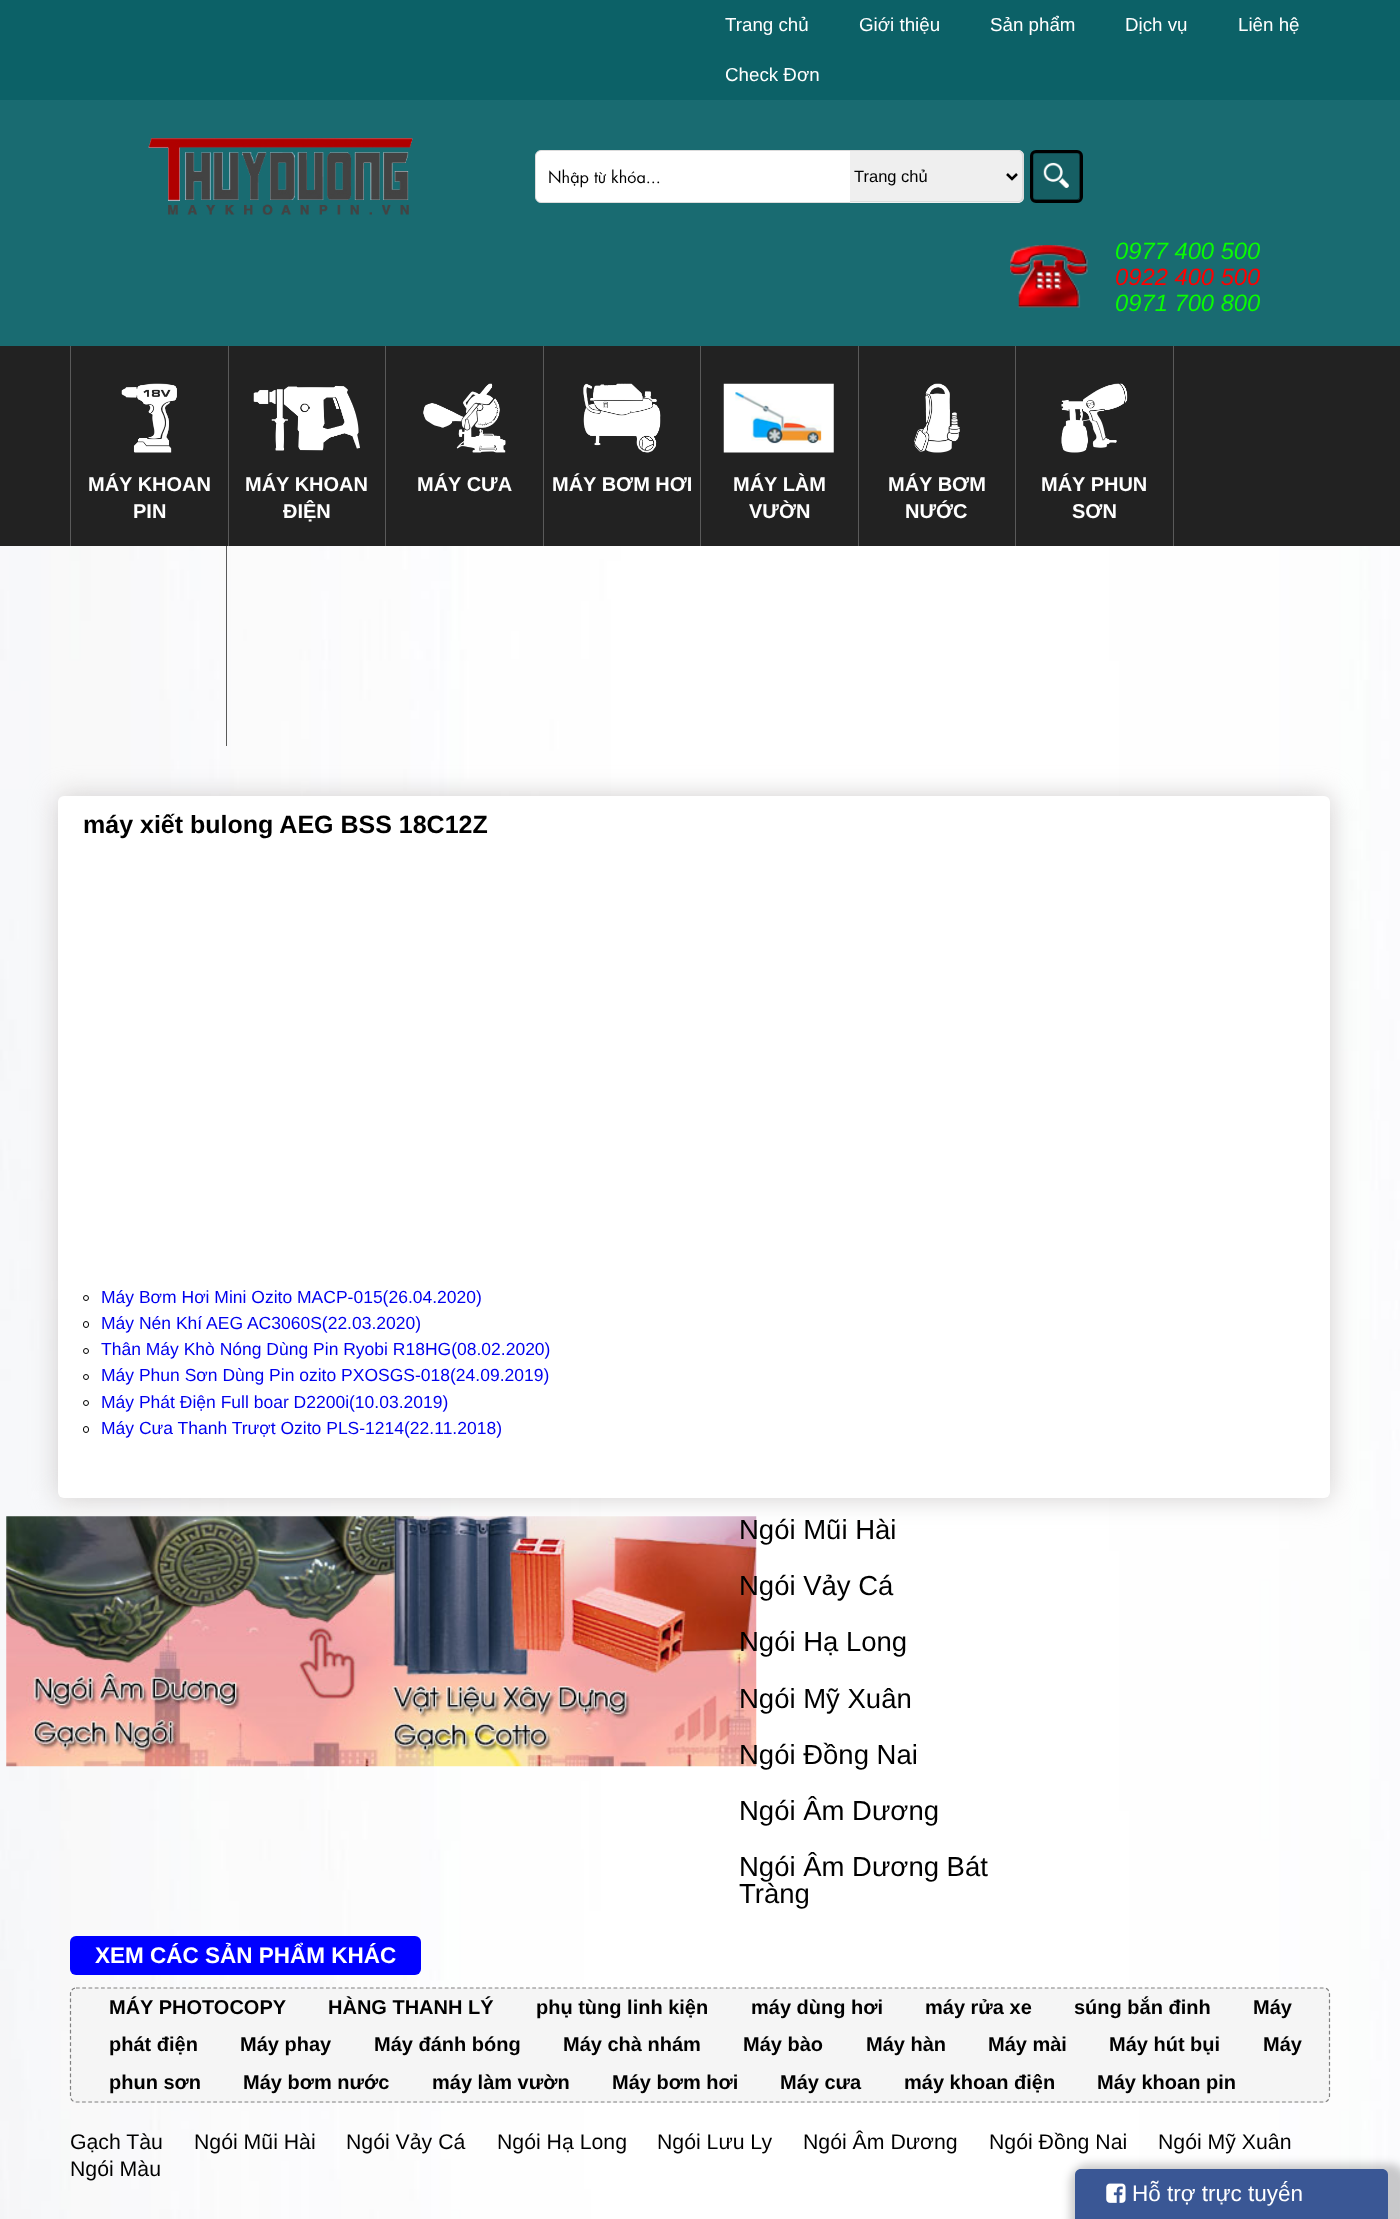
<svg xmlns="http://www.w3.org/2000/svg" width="1400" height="2219">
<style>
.a{font:18.75px Liberation Sans;fill:#fff}
.b{font:16.25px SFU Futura;fill:#000}
.c{font:16.5px Liberation Sans;fill:#000}
.d{font:italic 23.75px Liberation Sans;fill:#09fb03}
.e{font:italic 23.75px Liberation Sans;fill:#f00}
.f{font:bold 20px Liberation Sans;fill:#fff}
.g{font:bold 25px Liberation Sans;fill:#000}
.h{font:17.5px Liberation Sans;fill:#00e}
.i{font:27.5px Liberation Sans;fill:#000}
.j{font:bold 22.5px Liberation Sans;fill:#fff}
.k{font:bold 20px Liberation Sans;fill:#000}
.l{font:21.25px Liberation Sans;fill:#000}
.m{font:22.5px Liberation Sans;fill:#fff}
</style>
<rect width="100%" height="100%" fill="#fff"/>
<image href="1.png" x="0" y="546" width="1400" height="1673"/>
<path fill="#0c6167" d="M0 0h1400v100H0z"/>
<path fill="#196b71" d="M0 100h1400v246H0z"/>
<image href="2.png" x="148" y="138" width="265" height="77"/>
<rect fill="#fff" stroke="#dcdcdc" x="535.5" y="150.5" width="333" height="52" rx="5.5"/>
<path fill="#efefef" d="M850 150h168c3.5 0 6 2.5 6 6v41c0 3.5-2.5 6-6 6h-168z"/>
<path fill="#dcdcdc" fill-rule="evenodd" d="M850 150h168c3 0 6 3 6 6v40c0 4-3 6-6 6h-168zm0 1h168c2 0 4 2 4 5v40c0 3-2 5-4 5h-168z"/>
<path fill="none" stroke="#000" stroke-width="2.5" d="M1007 174l5 5l5-5"/>
<image href="3.png" x="1033" y="153" width="47" height="47"/>
<rect fill="none" stroke="#000" stroke-width="3" x="1031.5" y="151.5" width="50" height="50" rx="4.5"/>
<image href="4.png" x="1010" y="245" width="78" height="63"/>
<path fill="#222" d="M0 346h1400v200H0z"/>
<path fill="#5a5a5a" d="M228 346h1v200H228z"/>
<path fill="#5a5a5a" d="M70 346h1v200H70z"/>
<image href="5.png" x="121" y="383" width="56" height="70"/>
<path fill="#5a5a5a" d="M385 346h1v200H385z"/>
<image href="6.png" x="253" y="385" width="107" height="66"/>
<path fill="#5a5a5a" d="M543 346h1v200H543z"/>
<image href="7.png" x="423" y="383" width="83" height="70"/>
<path fill="#5a5a5a" d="M700 346h1v200H700z"/>
<image href="8.png" x="583" y="383" width="78" height="70"/>
<path fill="#5a5a5a" d="M858 346h1v200H858z"/>
<image href="9.png" x="723" y="383" width="111" height="70"/>
<path fill="#5a5a5a" d="M1015 346h1v200H1015z"/>
<image href="10.png" x="914" y="383" width="46" height="70"/>
<path fill="#5a5a5a" d="M1173 346h1v200H1173z"/>
<image href="11.png" x="1061" y="383" width="67" height="70"/>
<path fill="#5a5a5a" d="M226 546h1v200H226z"/>
<rect fill="#d0cdcd" filter="blur(13px)" x="58" y="796" width="1272" height="702" rx="6"/>
<rect fill="#fff" x="58" y="796" width="1272" height="702" rx="6"/>
<circle fill="none" stroke="#000" cx="86" cy="1298" r="2.5"/>
<rect fill="none" stroke="#000" x="83.5" y="1321.5" width="5" height="6" rx="2.5"/>
<circle fill="none" stroke="#000" cx="86" cy="1351" r="2.5"/>
<circle fill="none" stroke="#000" cx="86" cy="1377" r="2.5"/>
<circle fill="none" stroke="#000" cx="86" cy="1403" r="2.5"/>
<rect fill="none" stroke="#000" x="83.5" y="1426.5" width="5" height="6" rx="2.5"/>
<image href="12.png" x="6" y="1516" width="751" height="251"/>
<rect fill="#00f" x="70" y="1936" width="351" height="39" rx="6"/>
<rect fill="#f5f5f5" x="70" y="1988" width="1260" height="115" rx="6"/>
<path fill="none" stroke="#808080" stroke-width="1.2" stroke-dasharray="3.75 2.5" d="M76 1988h1248c3 0 5.5 2.5 5.5 6v102c0 3.5-2.5 6-5.5 6h-1248c-3 0-5.5-2.5-5.5-6v-102c0-3.5 2.5-6 5.5-6z"/>
<rect fill="#00000033" filter="blur(4px)" x="1070" y="2164" width="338" height="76" rx="19"/>
<path fill="#3a5795" d="M1081 2169h301c3.5 0 6 2.5 6 6v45h-313v-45c0-3.5 2.5-6 6-6z"/>
<image href="13.png" x="1106" y="2183" width="20" height="20"/>
<text class="a" x="725" y="31">Trang chủ</text>
<text class="a" x="859" y="31">Giới thiệu</text>
<text class="a" x="990" y="31">Sản phẩm</text>
<text class="a" x="1125" y="31">Dịch vụ</text>
<text class="a" x="1238" y="31">Liên hệ</text>
<text class="a" x="725" y="81">Check Đơn</text>
<text class="b" x="548" y="183">Nhập từ khóa...</text>
<text class="c" x="854" y="182">Trang chủ</text>
<text class="d" x="1115" y="259">0977 400 500</text>
<text class="e" x="1115" y="285">0922 400 500</text>
<text class="d" x="1115" y="311">0971 700 800</text>
<text class="f" x="88" y="491">MÁY KHOAN</text>
<text class="f" x="133" y="518">PIN</text>
<text class="f" x="245" y="491">MÁY KHOAN</text>
<text class="f" x="283" y="518">ĐIỆN</text>
<text class="f" x="417" y="491">MÁY CƯA</text>
<text class="f" x="552" y="491">MÁY BƠM HƠI</text>
<text class="f" x="733" y="491">MÁY LÀM</text>
<text class="f" x="749" y="518">VƯỜN</text>
<text class="f" x="888" y="491">MÁY BƠM</text>
<text class="f" x="905" y="518">NƯỚC</text>
<text class="f" x="1041" y="491">MÁY PHUN</text>
<text class="f" x="1072" y="518">SƠN</text>
<text class="g" x="83" y="833">máy xiết bulong AEG BSS 18C12Z</text>
<text class="h" x="101" y="1303">Máy Bơm Hơi Mini Ozito MACP-015(26.04.2020)</text>
<text class="h" x="101" y="1329">Máy Nén Khí AEG AC3060S(22.03.2020)</text>
<text class="h" x="101" y="1355">Thân Máy Khò Nóng Dùng Pin Ryobi R18HG(08.02.2020)</text>
<text class="h" x="101" y="1381">Máy Phun Sơn Dùng Pin ozito PXOSGS-018(24.09.2019)</text>
<text class="h" x="101" y="1408">Máy Phát Điện Full boar D2200i(10.03.2019)</text>
<text class="h" x="101" y="1434">Máy Cưa Thanh Trượt Ozito PLS-1214(22.11.2018)</text>
<text class="i" x="739" y="1539">Ngói Mũi Hài</text>
<text class="i" x="739" y="1595">Ngói Vảy Cá</text>
<text class="i" x="739" y="1651">Ngói Hạ Long</text>
<text class="i" x="739" y="1708">Ngói Mỹ Xuân</text>
<text class="i" x="739" y="1764">Ngói Đồng Nai</text>
<text class="i" x="739" y="1820">Ngói Âm Dương</text>
<text class="i" x="739" y="1876">Ngói Âm Dương Bát</text>
<text class="i" x="739" y="1903">Tràng</text>
<text class="j" x="95" y="1963">XEM CÁC SẢN PHẨM KHÁC</text>
<text class="k" x="109" y="2014">MÁY PHOTOCOPY</text>
<text class="k" x="328" y="2014">HÀNG THANH LÝ</text>
<text class="k" x="536" y="2014">phụ tùng linh kiện</text>
<text class="k" x="751" y="2014">máy dùng hơi</text>
<text class="k" x="925" y="2014">máy rửa xe</text>
<text class="k" x="1074" y="2014">súng bắn đinh</text>
<text class="k" x="1253" y="2014">Máy</text>
<text class="k" x="109" y="2051">phát điện</text>
<text class="k" x="240" y="2051">Máy phay</text>
<text class="k" x="374" y="2051">Máy đánh bóng</text>
<text class="k" x="563" y="2051">Máy chà nhám</text>
<text class="k" x="743" y="2051">Máy bào</text>
<text class="k" x="866" y="2051">Máy hàn</text>
<text class="k" x="988" y="2051">Máy mài</text>
<text class="k" x="1109" y="2051">Máy hút bụi</text>
<text class="k" x="1263" y="2051">Máy</text>
<text class="k" x="109" y="2089">phun sơn</text>
<text class="k" x="243" y="2089">Máy bơm nước</text>
<text class="k" x="432" y="2089">máy làm vườn</text>
<text class="k" x="612" y="2089">Máy bơm hơi</text>
<text class="k" x="780" y="2089">Máy cưa</text>
<text class="k" x="904" y="2089">máy khoan điện</text>
<text class="k" x="1097" y="2089">Máy khoan pin</text>
<text class="l" x="70" y="2149">Gạch Tàu</text>
<text class="l" x="194" y="2149">Ngói Mũi Hài</text>
<text class="l" x="346" y="2149">Ngói Vảy Cá</text>
<text class="l" x="497" y="2149">Ngói Hạ Long</text>
<text class="l" x="657" y="2149">Ngói Lưu Ly</text>
<text class="l" x="803" y="2149">Ngói Âm Dương</text>
<text class="l" x="989" y="2149">Ngói Đồng Nai</text>
<text class="l" x="1158" y="2149">Ngói Mỹ Xuân</text>
<text class="l" x="70" y="2176">Ngói Màu</text>
<text class="m" x="1132" y="2201">Hỗ trợ trực tuyến</text>
</svg>
